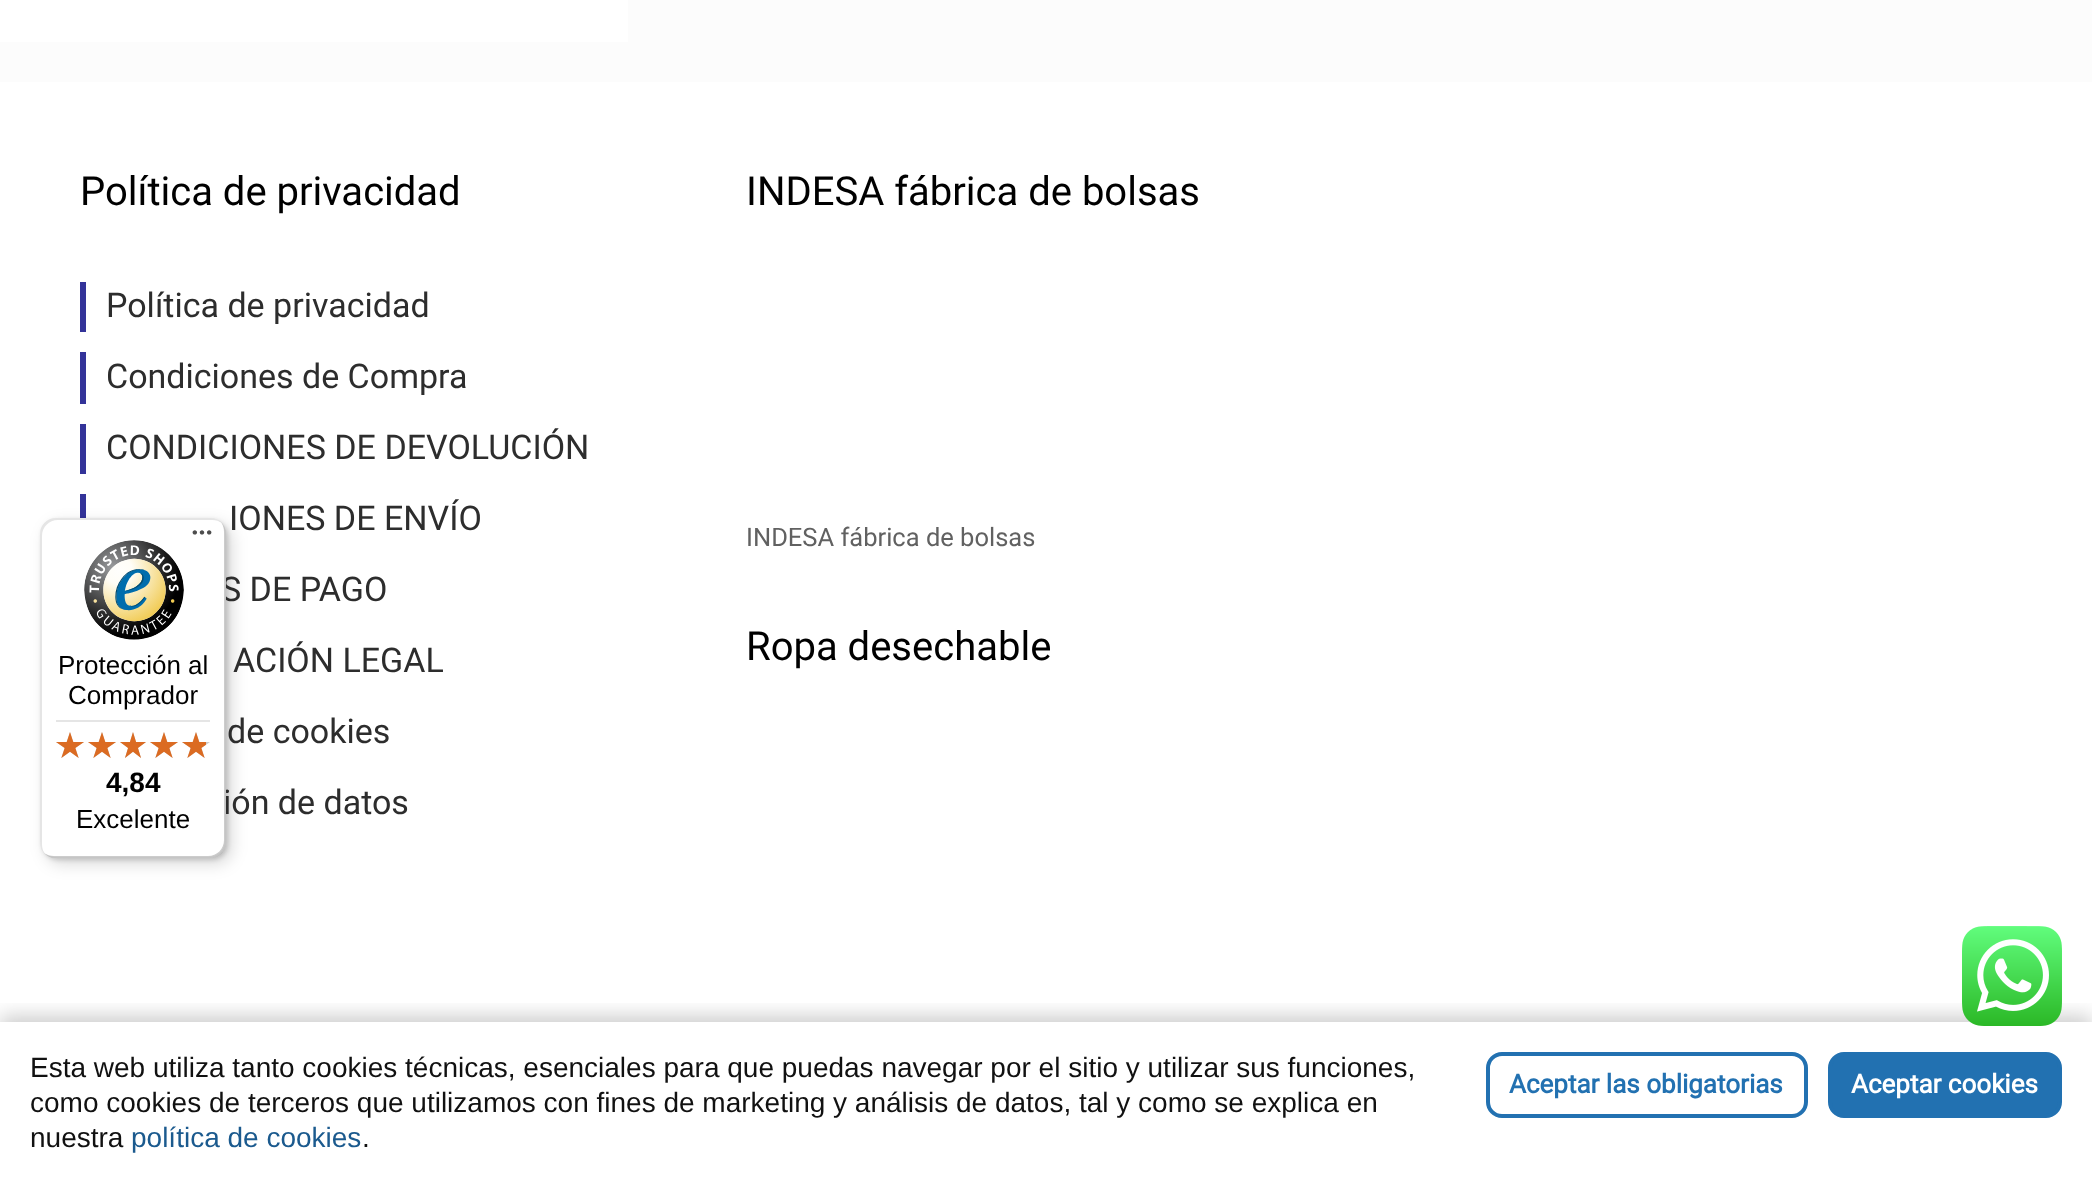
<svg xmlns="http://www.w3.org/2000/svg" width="2092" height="1186">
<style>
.a{font:40px Roboto;fill:#000}
.b{font:34px Roboto;fill:#2d2d2d}
.c{font:25.5px Roboto;fill:#616161}
.d{font:26px Liberation Sans;fill:#000}
.e{font:bold 28px Liberation Sans;fill:#000}
.f{font:28px Liberation Sans;fill:#111}
.g{font:28px Liberation Sans;fill:#1b5a8e}
.h{font:bold 26px Roboto;fill:#2271b1}
.i{font:bold 26px Roboto;fill:#fff}
</style>
<defs>
<clipPath id="clip1"><path d="M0 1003h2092v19H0z"/></clipPath>
</defs>
<rect width="100%" height="100%" fill="#fcfcfc"/>
<path fill="#fff" d="M0 0h628v42H0z"/>
<path fill="#fff" d="M0 82h2092v1104H0z"/>
<path fill="#339" d="M80 282h6v50H80z"/>
<path fill="#339" d="M80 352h6v52H80z"/>
<path fill="#339" d="M80 424h6v50H80z"/>
<path fill="#339" d="M80 494h6v24H80z"/>
<rect fill="#00000026" filter="blur(8px)" x="46" y="524" width="186" height="340" rx="16"/>
<rect fill="#00000026" filter="blur(2px)" x="42" y="520" width="186" height="340" rx="16"/>
<g clip-path="url(#clip1)">
<path fill="#00000033" filter="blur(10px)" d="M0 1016h2092v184H0z"/>
</g>
<image href="8.png" x="1962" y="926" width="100" height="100"/>
<rect fill="none" stroke="#2271b1" stroke-width="4" x="1488" y="1054" width="318" height="62" rx="14"/>
<rect fill="#2271b1" stroke="#2271b1" stroke-width="4" x="1830" y="1054" width="230" height="62" rx="14"/>
<text class="a" x="80" y="205">Política de privacidad</text>
<text class="b" x="106" y="317">Política de privacidad</text>
<text class="b" x="106" y="388">Condiciones de Compra</text>
<text class="b" x="106" y="459">CONDICIONES DE DEVOLUCIÓN</text>
<text class="b" x="229" y="530">IONES DE ENVÍO</text>
<text class="b" x="221" y="601">S DE PAGO</text>
<text class="b" x="233" y="672">ACIÓN LEGAL</text>
<text class="b" x="227" y="743">de cookies</text>
<text class="b" x="223" y="814">ión de datos</text>
<text class="a" x="746" y="205">INDESA fábrica de bolsas</text>
<text class="c" x="746" y="546">INDESA fábrica de bolsas</text>
<text class="a" x="746" y="660">Ropa desechable</text>
<rect fill="#fff" x="40" y="518" width="186" height="340" rx="16"/>
<path fill="#0000001a" d="M58 520h154c4 0 7 1 10 3c-3-3-7-5-12-5h-154c-9 0-16 7-16 16v308c0 5 2 9 5 12c-2-3-3-6-3-10v-308c0-9 7-16 16-16z"/>
<path fill="#00000033" d="M44 853c3 3 7 5 12 5h154c9 0 16-7 16-16v-308c0-5-2-9-5-12c2 3 3 6 3 10v308c0 9-7 16-16 16h-154c-4 0-7-1-10-3z"/>
<path fill="#32323233" d="M45 853c3 3 7 5 11 5h154c9 0 16-7 16-16v-308c0-4-2-8-5-11c3 3 4 6 4 10v308c0 9-7 16-16 16h-154c-4 0-7-1-10-4z"/>
<path fill="#ffffff4d" d="M45 853c3 3 7 5 11 5h154c9 0 16-7 16-16v-308c0-4-2-8-5-11c3 3 4 6 4 10v308c0 9-7 16-16 16h-154c-4 0-7-1-10-4z"/>
<image href="1.png" x="192" y="530" width="20" height="5"/>
<image href="2.png" x="84" y="540" width="100" height="100"/>
<text class="d" x="58" y="674">Protección al</text>
<text class="d" x="68" y="704">Comprador</text>
<path fill="#e5e5e5" d="M56 720h154v2H56z"/>
<image href="3.png" x="56" y="732" width="28" height="26"/>
<image href="3.png" x="88" y="732" width="28" height="26"/>
<image href="4.png" x="120" y="732" width="26" height="26"/>
<image href="3.png" x="150" y="732" width="28" height="26"/>
<image href="3.png" x="182" y="732" width="28" height="26"/>
<image href="5.png" x="56" y="732" width="28" height="26"/>
<image href="5.png" x="88" y="732" width="28" height="26"/>
<image href="6.png" x="120" y="732" width="26" height="26"/>
<image href="5.png" x="150" y="732" width="28" height="26"/>
<image href="7.png" x="182" y="732" width="24" height="26"/>
<text class="e" x="106" y="792">4,84</text>
<text class="d" x="76" y="828">Excelente</text>
<text class="f" x="30" y="1077">Esta web utiliza tanto cookies técnicas, esenciales para que puedas navegar por el sitio y utilizar sus funciones,</text>
<text class="f" x="30" y="1112">como cookies de terceros que utilizamos con fines de marketing y análisis de datos, tal y como se explica en</text>
<text class="f" x="30" y="1147">nuestra</text>
<text class="g" x="131" y="1147">política de cookies</text>
<text class="f" x="362" y="1147">.</text>
<text class="h" x="1509" y="1093">Aceptar las obligatorias</text>
<text class="i" x="1851" y="1093">Aceptar cookies</text>
</svg>
